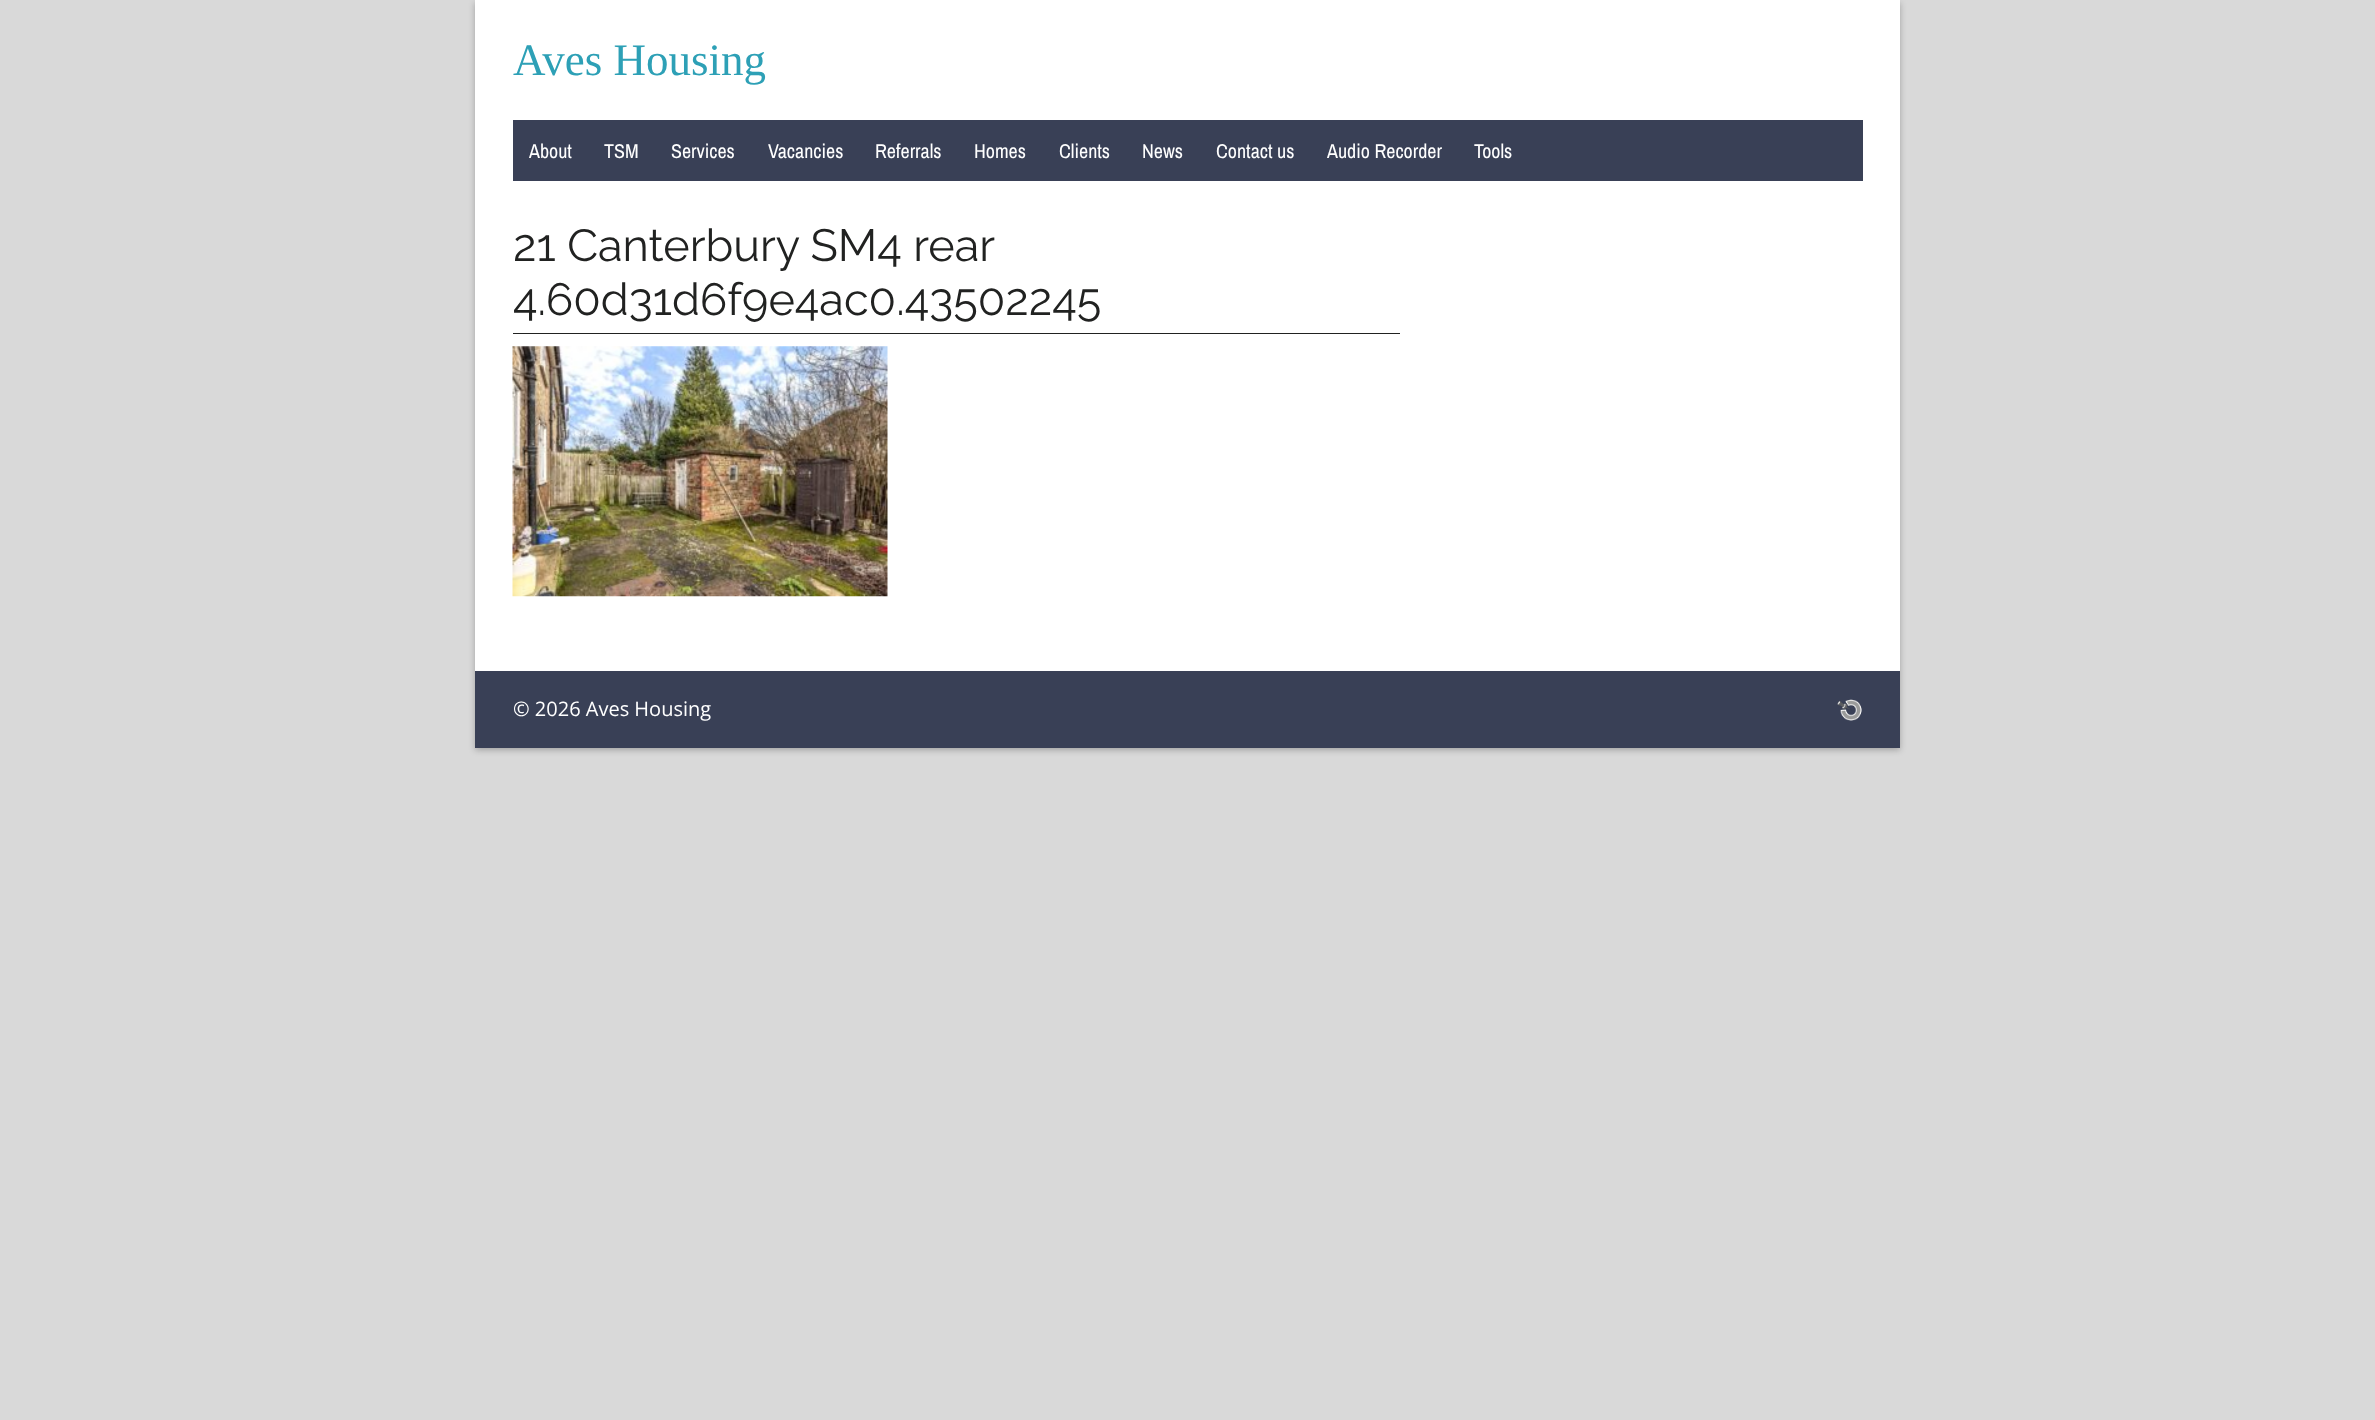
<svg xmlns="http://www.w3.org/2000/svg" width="2375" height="1420">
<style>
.a{font:45px Liberation Serif;fill:#2da0b6}
.b{font:20px Archivo Narrow;fill:#fff}
.c{font:45px Raleway;fill:#212221}
.d{font:20px Open Sans;fill:#fff}
</style>
<rect width="100%" height="100%" fill="#d9d9d9"/>
<path fill="#00000042" filter="blur(3px)" d="M475 3h1425v747H475z"/>
<path fill="#fff" d="M475 0h1425v671H475z"/>
<path fill="#394056" d="M513 120h1350v61H513z"/>
<path fill="#212221" d="M513 333h887v1H513z"/>
<image href="1.png" x="512" y="346" width="376" height="251"/>
<path fill="#394056" d="M475 671h1425v77H475z"/>
<image href="2.png" x="1837" y="699" width="25" height="22"/>
<text class="a" x="513" y="75">Aves Housing</text>
<text class="b" x="529" y="158">About</text>
<text class="b" x="604" y="158">TSM</text>
<text class="b" x="671" y="158">Services</text>
<text class="b" x="768" y="158">Vacancies</text>
<text class="b" x="875" y="158">Referrals</text>
<text class="b" x="974" y="158">Homes</text>
<text class="b" x="1059" y="158">Clients</text>
<text class="b" x="1142" y="158">News</text>
<text class="b" x="1216" y="158">Contact us</text>
<text class="b" x="1327" y="158">Audio Recorder</text>
<text class="b" x="1474" y="158">Tools</text>
<text class="c" x="513" y="261">21 Canterbury SM4 rear</text>
<text class="c" x="513" y="315">4.60d31d6f9e4ac0.43502245</text>
<text class="d" x="513" y="716">© 2026 Aves Housing</text>
</svg>
